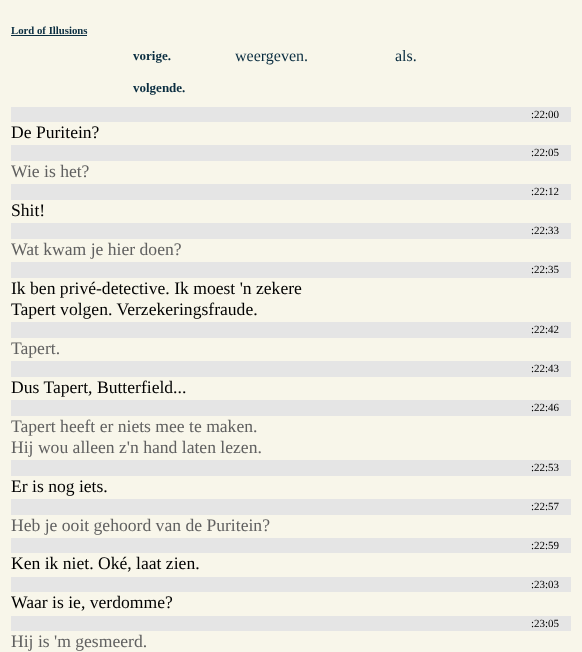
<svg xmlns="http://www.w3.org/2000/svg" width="582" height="652">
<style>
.a{font:bold 10.75px Liberation Serif;fill:#0a2d40}
.b{font:bold 13px Liberation Serif;fill:#0a2d40}
.c{font:16px Liberation Serif;fill:#0a2d40}
.d{font:11px Liberation Serif;fill:#000}
.e{font:17.6px Liberation Serif;fill:#000}
.f{font:17.6px Liberation Serif;fill:#606060}
</style>
<rect width="100%" height="100%" fill="#f8f6ea"/>
<path fill="#0a2d40" d="M11 35h76v1H11z"/>
<path fill="#e5e5e5" d="M11 107h560v15H11z"/>
<path fill="#e5e5e5" d="M11 145h560v16H11z"/>
<path fill="#e5e5e5" d="M11 184h560v16H11z"/>
<path fill="#e5e5e5" d="M11 223h560v16H11z"/>
<path fill="#e5e5e5" d="M11 262h560v16H11z"/>
<path fill="#e5e5e5" d="M11 322h560v16H11z"/>
<path fill="#e5e5e5" d="M11 361h560v16H11z"/>
<path fill="#e5e5e5" d="M11 400h560v16H11z"/>
<path fill="#e5e5e5" d="M11 460h560v16H11z"/>
<path fill="#e5e5e5" d="M11 499h560v16H11z"/>
<path fill="#e5e5e5" d="M11 538h560v15H11z"/>
<path fill="#e5e5e5" d="M11 577h560v15H11z"/>
<path fill="#e5e5e5" d="M11 616h560v15H11z"/>
<text class="a" x="11" y="34">Lord of Illusions</text>
<text class="b" x="133" y="60">vorige.</text>
<text class="c" x="235" y="61">weergeven.</text>
<text class="c" x="395" y="61">als.</text>
<text class="b" x="133" y="92">volgende.</text>
<text class="d" x="531" y="118">:22:00</text>
<text class="e" x="11" y="138">De Puritein?</text>
<text class="d" x="531" y="156">:22:05</text>
<text class="f" x="11" y="177">Wie is het?</text>
<text class="d" x="531" y="195">:22:12</text>
<text class="e" x="11" y="216">Shit!</text>
<text class="d" x="531" y="234">:22:33</text>
<text class="f" x="11" y="255">Wat kwam je hier doen?</text>
<text class="d" x="531" y="273">:22:35</text>
<text class="e" x="11" y="294">Ik ben privé-detective. Ik moest 'n zekere</text>
<text class="e" x="11" y="315">Tapert volgen. Verzekeringsfraude.</text>
<text class="d" x="531" y="333">:22:42</text>
<text class="f" x="11" y="354">Tapert.</text>
<text class="d" x="531" y="372">:22:43</text>
<text class="e" x="11" y="393">Dus Tapert, Butterfield...</text>
<text class="d" x="531" y="411">:22:46</text>
<text class="f" x="11" y="432">Tapert heeft er niets mee te maken.</text>
<text class="f" x="11" y="453">Hij wou alleen z'n hand laten lezen.</text>
<text class="d" x="531" y="471">:22:53</text>
<text class="e" x="11" y="492">Er is nog iets.</text>
<text class="d" x="531" y="510">:22:57</text>
<text class="f" x="11" y="531">Heb je ooit gehoord van de Puritein?</text>
<text class="d" x="531" y="549">:22:59</text>
<text class="e" x="11" y="569">Ken ik niet. Oké, laat zien.</text>
<text class="d" x="531" y="588">:23:03</text>
<text class="e" x="11" y="608">Waar is ie, verdomme?</text>
<text class="d" x="531" y="627">:23:05</text>
<text class="f" x="11" y="647">Hij is 'm gesmeerd.</text>
</svg>
